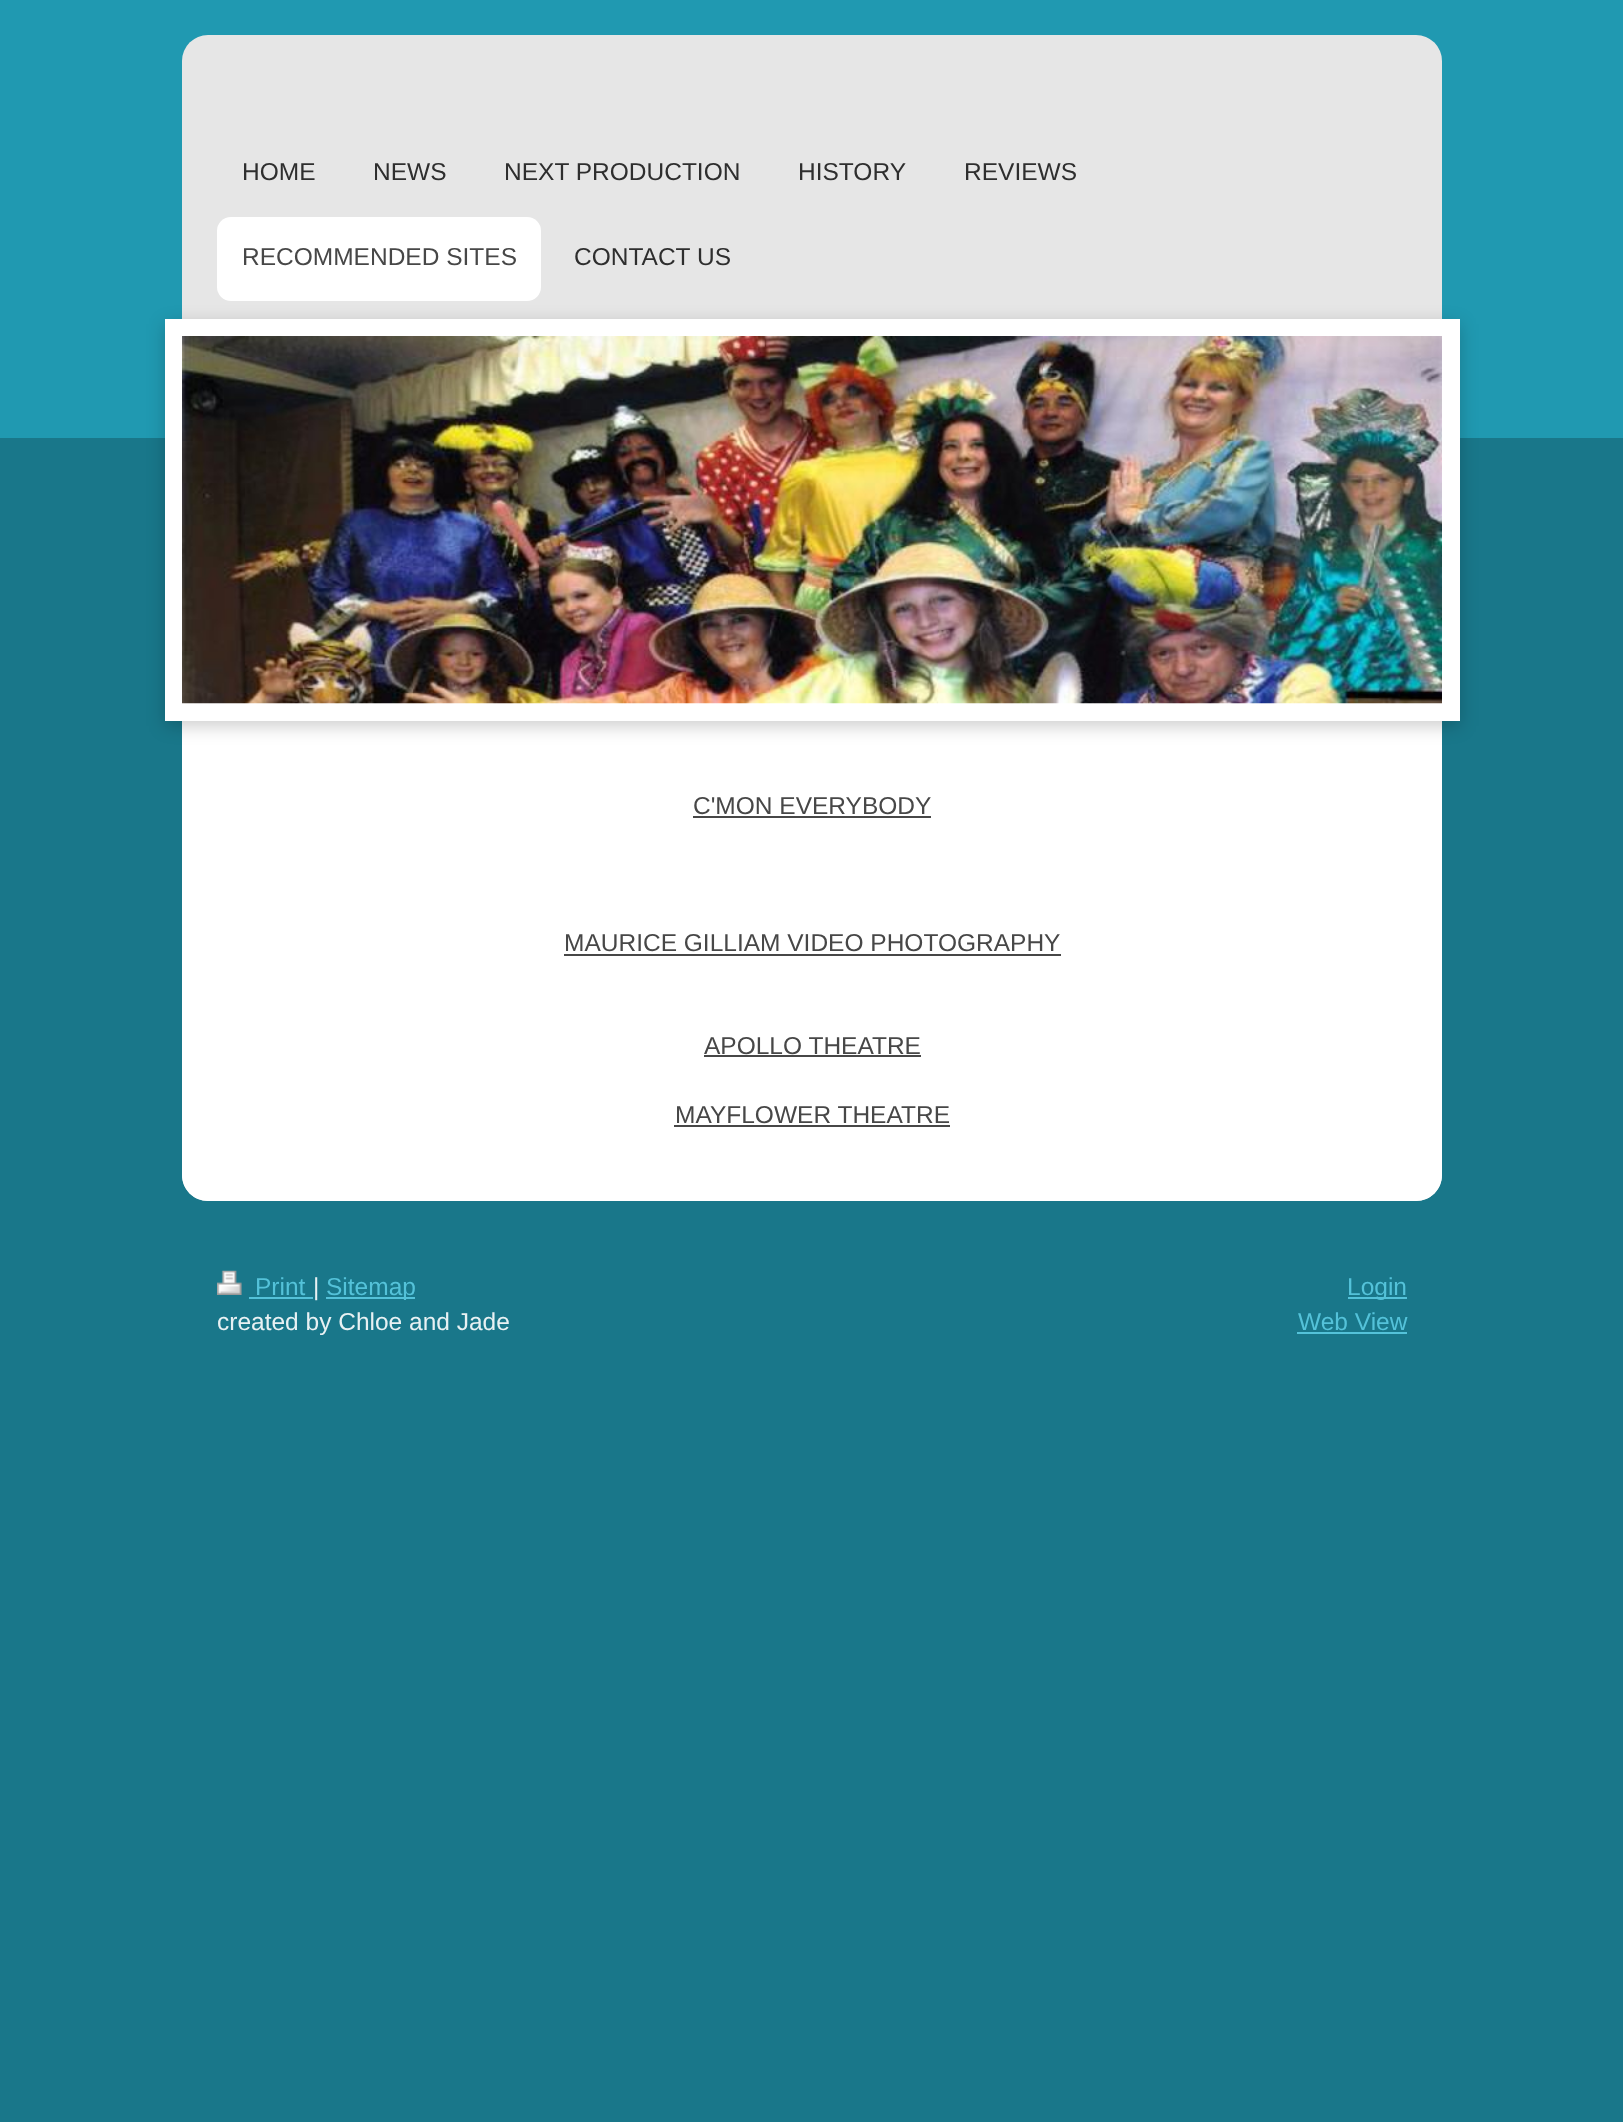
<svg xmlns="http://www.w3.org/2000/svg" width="1623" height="2122">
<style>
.a{font:24.5px Liberation Sans;fill:#2e2e2e}
.b{font:24.5px Liberation Sans;fill:#474747}
.c{font:24.5px Liberation Sans;fill:#54c2d9}
.d{font:24.5px Liberation Sans;fill:#e8f1f3}
</style>
<rect width="100%" height="100%" fill="#19778a"/>
<path fill="#2099b1" d="M0 0h1623v438H0z"/>
<rect fill="#e6e6e6" x="182" y="35" width="1260" height="1166" rx="26"/>
<rect fill="#fff" x="217" y="217" width="324" height="84" rx="14"/>
<path fill="#fff" d="M182 721h1260v454c0 14.5-11.5 26-26 26h-1208c-14.5 0-26-11.5-26-26z"/>
<path fill="#00000033" filter="blur(9px)" d="M165 324h1295v402H165z"/>
<path fill="none" stroke="#fff" stroke-width="18" d="M174 328h1277v384H174z"/>
<image href="1.png" x="182" y="336" width="1260" height="368"/>
<path fill="#474747" d="M693 816h238v2H693z"/>
<path fill="#474747" d="M564 954h497v2H564z"/>
<path fill="#474747" d="M704 1055h217v2H704z"/>
<path fill="#474747" d="M674 1125h276v2H674z"/>
<image href="2.png" x="217" y="1270" width="25" height="25"/>
<path fill="#54c2d9" d="M249 1297h64v2H249z"/>
<path fill="#54c2d9" d="M326 1297h89v2H326z"/>
<path fill="#54c2d9" d="M1348 1297h59v2H1348z"/>
<path fill="#54c2d9" d="M1297 1332h110v2H1297z"/>
<text class="a" x="242" y="180">HOME</text>
<text class="a" x="373" y="180">NEWS</text>
<text class="a" x="504" y="180">NEXT PRODUCTION</text>
<text class="a" x="798" y="180">HISTORY</text>
<text class="a" x="964" y="180">REVIEWS</text>
<text class="b" x="242" y="265">RECOMMENDED SITES</text>
<text class="a" x="574" y="265">CONTACT US</text>
<text class="b" x="693" y="814">C'MON EVERYBODY</text>
<text class="b" x="564" y="951">MAURICE GILLIAM VIDEO PHOTOGRAPHY</text>
<text class="b" x="704" y="1054">APOLLO THEATRE</text>
<text class="b" x="675" y="1123">MAYFLOWER THEATRE</text>
<text class="c" x="255" y="1295">Print</text>
<text class="d" x="313" y="1295">|</text>
<text class="c" x="326" y="1295">Sitemap</text>
<text class="d" x="217" y="1330">created by Chloe and Jade</text>
<text class="c" x="1347" y="1295">Login</text>
<text class="c" x="1298" y="1330">Web View</text>
</svg>
